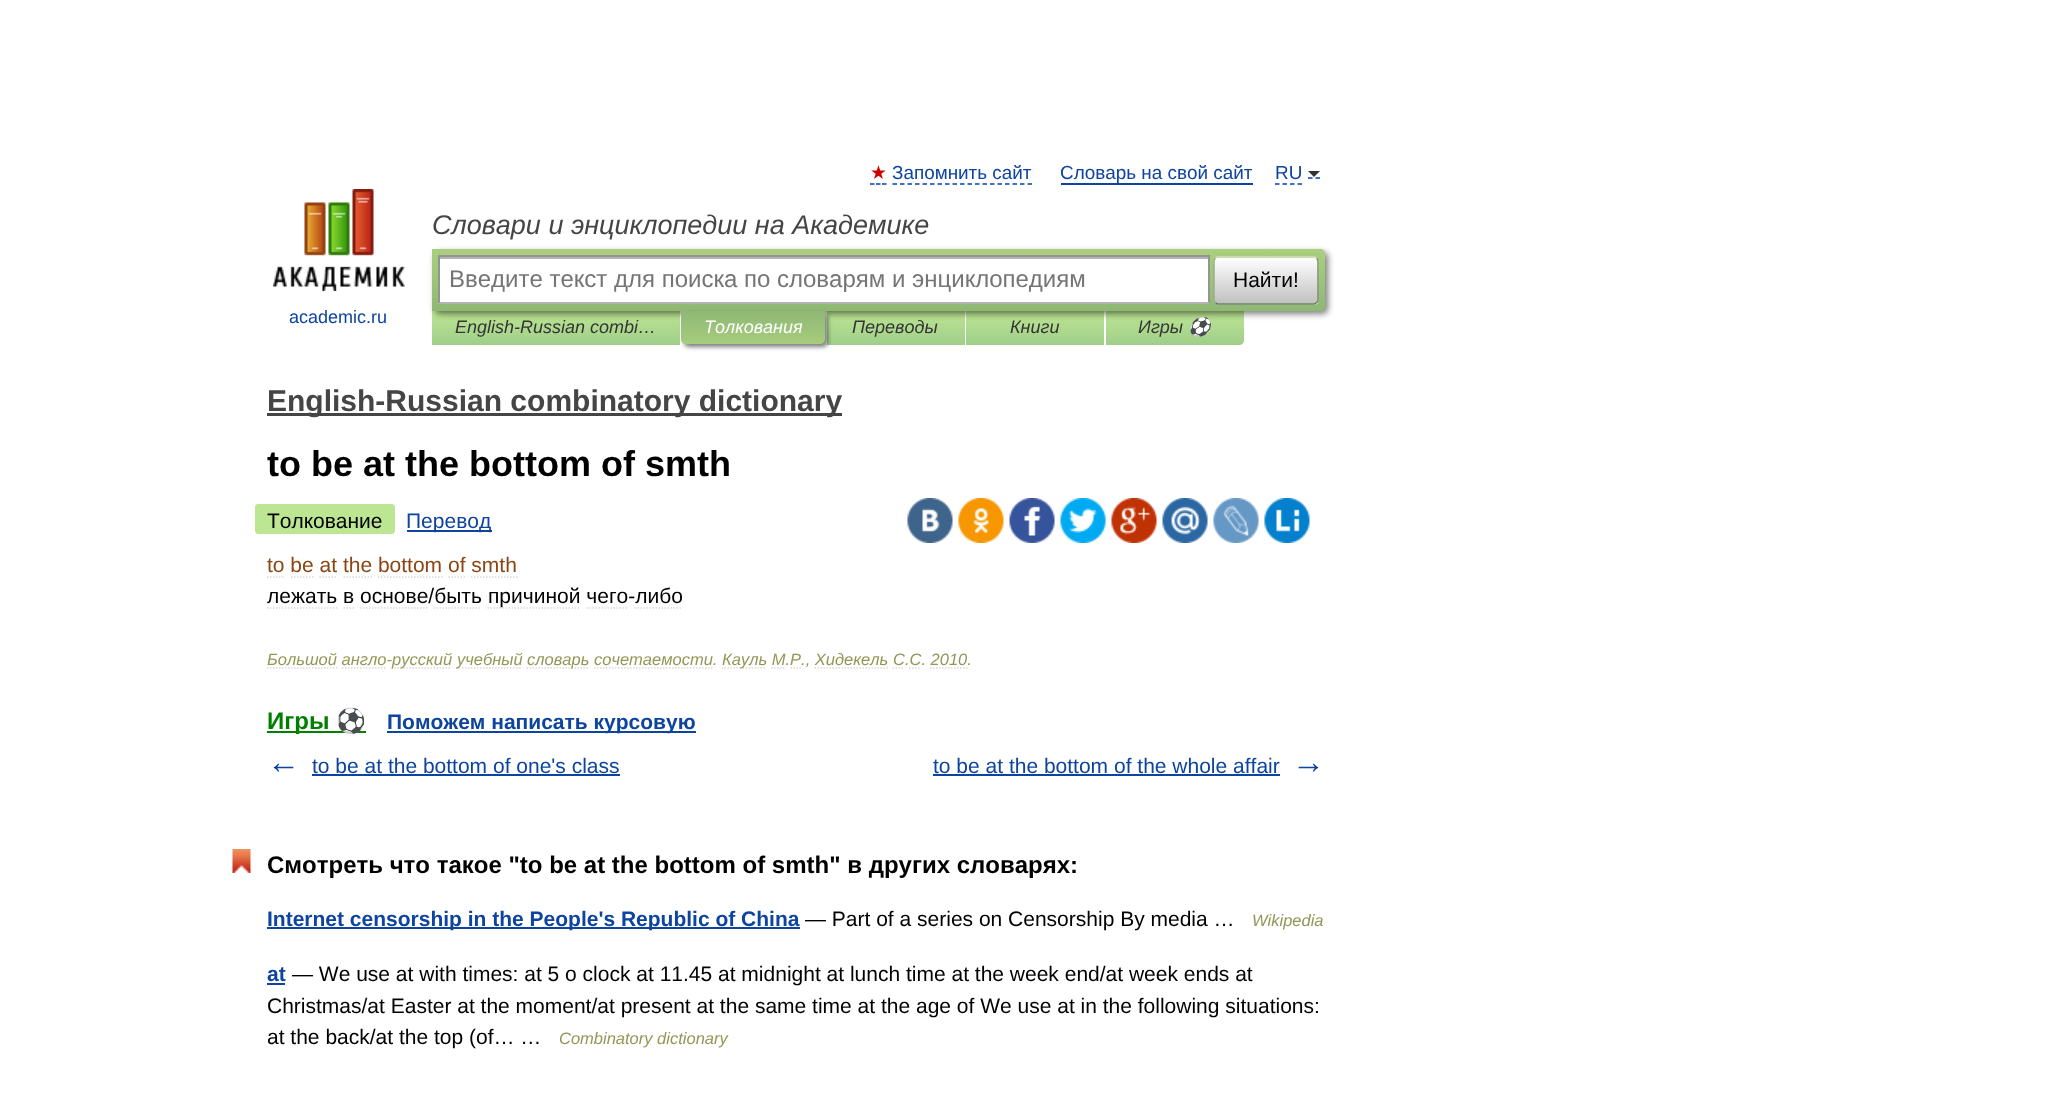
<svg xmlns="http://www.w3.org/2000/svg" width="2064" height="1112">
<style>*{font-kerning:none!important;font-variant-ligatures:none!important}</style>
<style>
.a{font:18.9px DejaVu Sans;fill:#c00}
.b{font:18.9px Liberation Sans;fill:#0d44a0}
.c{font:italic 27px Liberation Sans;fill:#454545}
.d{font:24px Liberation Sans;fill:#757575}
.e{font:21px Liberation Sans;fill:#000}
.f{font:18px Liberation Sans;fill:#0d44a0}
.g{font:italic 18px Liberation Sans;fill:#353535}
.h{font:italic 18px Liberation Sans;fill:#fff}
.i{font:italic 18px Noto Color Emoji;fill:#353535}
.j{font:bold 30px Liberation Sans;fill:#454545}
.k{font:bold 36px Liberation Sans;fill:#000}
.l{font:21px Liberation Sans;fill:#0d44a0}
.m{font:21px Liberation Sans;fill:#8b4513}
.n{font:italic 16.5px Liberation Sans;fill:#939756}
.o{font:bold 24px Liberation Sans;fill:#008000}
.p{font:bold 24px Noto Color Emoji;fill:#008000}
.q{font:bold 21px Liberation Sans;fill:#0d44a0}
.r{font:bold 33px Liberation Sans;fill:#0d44a0}
.s{font:bold 24px Liberation Sans;fill:#000}
</style>
<defs>
<linearGradient id="g1" gradientUnits="userSpaceOnUse" x1="556" y1="311" x2="556" y2="345"><stop offset="0" stop-color="#bde693"/><stop offset="1" stop-color="#a0ce8a"/></linearGradient>
<linearGradient id="g2" gradientUnits="userSpaceOnUse" x1="896" y1="311" x2="896" y2="345"><stop offset="0" stop-color="#bde693"/><stop offset="1" stop-color="#a0ce8a"/></linearGradient>
<linearGradient id="g3" gradientUnits="userSpaceOnUse" x1="1035" y1="311" x2="1035" y2="345"><stop offset="0" stop-color="#bde693"/><stop offset="1" stop-color="#a0ce8a"/></linearGradient>
<linearGradient id="g4" gradientUnits="userSpaceOnUse" x1="1175" y1="311" x2="1175" y2="345"><stop offset="0" stop-color="#bde693"/><stop offset="1" stop-color="#a0ce8a"/></linearGradient>
<linearGradient id="g5" gradientUnits="userSpaceOnUse" x1="878" y1="249" x2="878" y2="311"><stop offset="0" stop-color="#abcf7e"/><stop offset="1" stop-color="#8eb874"/></linearGradient>
<clipPath id="clip1"><rect x="1214" y="257" width="105" height="48" rx="5"/></clipPath>
<linearGradient id="g6" gradientUnits="userSpaceOnUse" x1="1266" y1="258" x2="1266" y2="303"><stop offset="0" stop-color="#fff"/><stop offset="1" stop-color="#c1c1c1"/></linearGradient>
<linearGradient id="g7" gradientUnits="userSpaceOnUse" x1="1266" y1="303" x2="1266" y2="348"><stop offset="0" stop-color="#fff"/><stop offset="1" stop-color="#c1c1c1"/></linearGradient>
<linearGradient id="g8" gradientUnits="userSpaceOnUse" x1="753" y1="311" x2="753" y2="344"><stop offset="0" stop-color="#8fb875"/><stop offset="1" stop-color="#a7cc7d"/></linearGradient>
</defs>
<rect width="100%" height="100%" fill="#fff"/>
<path fill="none" stroke="#04a" stroke-width="1.5" d="M870 184h4.5m1.5 0h4.5m1.5 0h4.5"/>
<path fill="none" stroke="#04a" stroke-width="1.5" stroke-dasharray="4.5 3" d="M892.5 184h139.5"/>
<path fill="#0d44a0" d="M1061 183h192v2H1061z"/>
<path fill="none" stroke="#04a" stroke-width="1.5" stroke-dasharray="4.5 3" d="M1275 184h27"/>
<path fill="none" stroke="#04a" stroke-width="1.5" d="M1308 178h4.5m3 0h4.5"/>
<path fill="#333" d="M1308 171h12l-6 6z"/>
<path fill="url(#g1)" d="M432 311h248v34H432z"/>
<path fill="url(#g2)" d="M827 311h138v34H827z"/>
<path fill="url(#g3)" d="M966 311h138v34H966z"/>
<path fill="url(#g4)" d="M1106 311h138v29c0 3-2 5-5 5h-133z"/>
<rect fill="#00000080" filter="blur(3px)" x="435" y="252" width="893" height="62" rx="5"/>
<path fill="url(#g5)" d="M432 249h888c3 0 5 2 5 5v52c0 3-2 5-5 5h-888z"/>
<path fill="#fff" d="M440 259h768v43H440z"/>
<path fill="#b3b3b3" d="M440 257h768v2H440z"/>
<path fill="#949494" d="M438 255h771v2H438z"/>
<path fill="#949494" d="M1208 255h2v48H1208z"/>
<path fill="#b4b4b4" d="M438 302h771v2H438z"/>
<path fill="#949494" d="M438 255h2v48H438z"/>
<g clip-path="url(#clip1)">
<path fill="url(#g6)" d="M1214 258h105v45H1214z"/>
<path fill="url(#g7)" d="M1214 303h105v2H1214z"/>
</g>
<path fill="none" stroke="#d1e4bc" stroke-width="1.5" d="M1215.5 258.5c.5-1 1.5-1.5 2.5-1.5h96c1 0 2 .5 2.5 1.5"/>
<path fill="none" stroke="#7a8e69" stroke-width="1.5" d="M1316.5 258.5c1 .5 1.5 1.5 1.5 2.5v39c0 1-.5 2-1.5 2.5"/>
<path fill="none" stroke="#5d7250" stroke-width="1.5" d="M1316.5 302.5c-.5 1-1.5 1.5-2.5 1.5h-96c-1 0-2-.5-2.5-1.5"/>
<path fill="none" stroke="#9aae89" stroke-width="1.5" d="M1215.5 302.5c-1-.5-1.5-1.5-1.5-2.5v-39c0-1 .5-2 1.5-2.5"/>
<image href="1.png" x="273" y="189" width="132" height="102"/>
<rect fill="#00000080" filter="blur(2px)" x="684" y="314" width="144" height="33" rx="5"/>
<path fill="url(#g8)" d="M681 311h144v28c0 3-2 5-5 5h-134c-3 0-5-2-5-5z"/>
<path fill="#454545" d="M267 413h575v3H267z"/>
<path fill="#bde693" d="M258 504h9v30h-9c-1.5 0-3-1.5-3-3v-24c0-1.5 1.5-3 3-3z"/>
<path fill="#bde693" d="M267 504h125c1.5 0 3 1.5 3 3v24c0 1.5-1.5 3-3 3h-125z"/>
<path fill="#0d44a0" d="M407 530h85v2H407z"/>
<image href="2.png" x="907" y="498" width="46" height="45"/>
<image href="3.png" x="958" y="498" width="46" height="45"/>
<image href="4.png" x="1009" y="498" width="46" height="45"/>
<image href="5.png" x="1060" y="498" width="46" height="45"/>
<image href="6.png" x="1111" y="498" width="46" height="45"/>
<image href="7.png" x="1162" y="498" width="46" height="45"/>
<image href="8.png" x="1213" y="498" width="46" height="45"/>
<image href="9.png" x="1264" y="498" width="46" height="45"/>
<path fill="none" stroke="#d9d9d9" stroke-width="1.5" stroke-dasharray="1.5 1.5" d="M267 577h18"/>
<path fill="none" stroke="#d9d9d9" stroke-width="1.5" stroke-dasharray="1.5 1.5" d="M291 577h22.5m6 0h18"/>
<path fill="none" stroke="#d9d9d9" stroke-width="1.5" stroke-dasharray="1.5 1.5" d="M343.5 577h28.5"/>
<path fill="none" stroke="#d9d9d9" stroke-width="1.5" stroke-dasharray="1.5 1.5" d="M378 577h64.5"/>
<path fill="none" stroke="#d9d9d9" stroke-width="1.5" stroke-dasharray="1.5 1.5" d="M448.5 577h16.5"/>
<path fill="none" stroke="#d9d9d9" stroke-width="1.5" stroke-dasharray="1.5 1.5" d="M471 577h46.5"/>
<path fill="none" stroke="#d9d9d9" stroke-width="1.5" stroke-dasharray="1.5 1.5" d="M267 608h70.5"/>
<path fill="none" stroke="#d9d9d9" stroke-width="1.5" d="M343.5 608h1.5m1.5 0h1.5m1.5 0h1.5m1.5 0h1.5"/>
<path fill="none" stroke="#d9d9d9" stroke-width="1.5" stroke-dasharray="1.5 1.5" d="M360 608h69"/>
<path fill="none" stroke="#d9d9d9" stroke-width="1.5" stroke-dasharray="1.5 1.5" d="M433.5 608h48"/>
<path fill="none" stroke="#d9d9d9" stroke-width="1.5" stroke-dasharray="1.5 1.5" d="M487.5 608h93"/>
<path fill="none" stroke="#d9d9d9" stroke-width="1.5" stroke-dasharray="1.5 1.5" d="M267 668h70.5"/>
<path fill="none" stroke="#d9d9d9" stroke-width="1.5" stroke-dasharray="1.5 1.5" d="M342 668h45"/>
<path fill="none" stroke="#d9d9d9" stroke-width="1.5" stroke-dasharray="1.5 1.5" d="M391.5 668h60"/>
<path fill="none" stroke="#d9d9d9" stroke-width="1.5" stroke-dasharray="1.5 1.5" d="M456 668h66"/>
<path fill="none" stroke="#d9d9d9" stroke-width="1.5" stroke-dasharray="1.5 1.5" d="M526.5 668h63"/>
<path fill="none" stroke="#d9d9d9" stroke-width="1.5" stroke-dasharray="1.5 1.5" d="M721.5 668h45"/>
<path fill="#008000" d="M267 731h99v2H267z"/>
<path fill="#0d44a0" d="M387 731h309v2H387z"/>
<path fill="#0d44a0" d="M312 774h308v2H312z"/>
<path fill="#0d44a0" d="M933 774h347v2H933z"/>
<image href="10.png" x="232" y="849" width="19" height="24"/>
<path fill="#0d44a0" d="M267 927h533v2H267z"/>
<path fill="#0d44a0" d="M267 983h18v2H267z"/>
<text class="a" x="870" y="179">★</text>
<text class="b" x="892" y="179">Запомнить сайт</text>
<text class="b" x="1060" y="179">Словарь на свой сайт</text>
<text class="b" x="1275" y="179">RU</text>
<text class="c" x="432" y="234">Словари и энциклопедии на Академике</text>
<text class="d" x="449" y="287">Введите текст для поиска по словарям и энциклопедиям</text>
<text class="e" x="1233" y="287">Найти!</text>
<text class="f" x="289" y="323">academic.ru</text>
<text class="g" x="455" y="333">English-Russian combi…</text>
<text class="h" x="704" y="333">Толкования</text>
<text class="g" x="852" y="333">Переводы</text>
<text class="g" x="1010" y="333">Книги</text>
<text class="g" x="1138" y="333">Игры</text>
<text class="i" x="1188" y="333">⚽</text>
<text class="j" x="267" y="411">English-Russian combinatory dictionary</text>
<text class="k" x="267" y="476">to be at the bottom of smth</text>
<text class="e" x="267" y="528">Толкование</text>
<text class="l" x="406" y="528">Перевод</text>
<text class="m" x="267" y="572">to be at the bottom of smth</text>
<text class="e" x="267" y="603">лежать в основе/быть</text>
<text class="e" x="488" y="603">причиной чего-либо</text>
<path fill="none" stroke="#d9d9d9" stroke-width="1.5" stroke-dasharray="1.5 1.5" d="M586.5 608h42"/>
<path fill="none" stroke="#d9d9d9" stroke-width="1.5" stroke-dasharray="1.5 1.5" d="M634.5 608h48"/>
<text class="n" x="267" y="665">Большой англо-</text>
<text class="n" x="392" y="665">русский</text>
<text class="n" x="457" y="665">учебный</text>
<text class="n" x="527" y="665">словарь сочетаемости.</text>
<path fill="none" stroke="#d9d9d9" stroke-width="1.5" stroke-dasharray="1.5 1.5" d="M594 668h118.5"/>
<text class="n" x="722" y="665">Кауль М.Р., Хидекель</text>
<text class="n" x="893" y="665">С.С. 2010.</text>
<path fill="none" stroke="#d9d9d9" stroke-width="1.5" stroke-dasharray="1.5 1.5" d="M771 668h15"/>
<path fill="none" stroke="#d9d9d9" stroke-width="1.5" d="M790.5 668h1.5m1.5 0h1.5m1.5 0h1.5m1.5 0h1.5"/>
<path fill="none" stroke="#d9d9d9" stroke-width="1.5" stroke-dasharray="1.5 1.5" d="M814.5 668h73.5"/>
<path fill="none" stroke="#d9d9d9" stroke-width="1.5" stroke-dasharray="1.5 1.5" d="M892.5 668h12m4.5 0h12"/>
<path fill="none" stroke="#d9d9d9" stroke-width="1.5" stroke-dasharray="1.5 1.5" d="M930 668h37.5"/>
<text class="o" x="267" y="729">Игры</text>
<text class="p" x="336" y="729">⚽</text>
<text class="q" x="387" y="729">Поможем написать курсовую</text>
<text class="r" x="267" y="773">←</text>
<text class="l" x="312" y="773">to be at the bottom of one's class</text>
<text class="l" x="933" y="773">to be at the bottom of the whole affair</text>
<text class="r" x="1292" y="773">→</text>
<text class="s" x="267" y="873">Смотреть что такое "to be at the bottom of smth" в других словарях:</text>
<text class="q" x="267" y="926">Internet censorship in the People's Republic of China</text>
<text class="e" x="805" y="926">— Part of a series on Censorship By media …</text>
<text class="n" x="1252" y="926">Wikipedia</text>
<text class="q" x="267" y="981">at</text>
<text class="e" x="292" y="981">— We use at with times: at 5 o clock at 11.45 at midnight at lunch time at the week end/at week ends at</text>
<text class="e" x="267" y="1013">Christmas/at Easter at the moment/at present at the same time at the age of We use at in the following situations:</text>
<text class="e" x="267" y="1044">at the back/at the top (of… …</text>
<text class="n" x="559" y="1044">Combinatory dictionary</text>
</svg>
